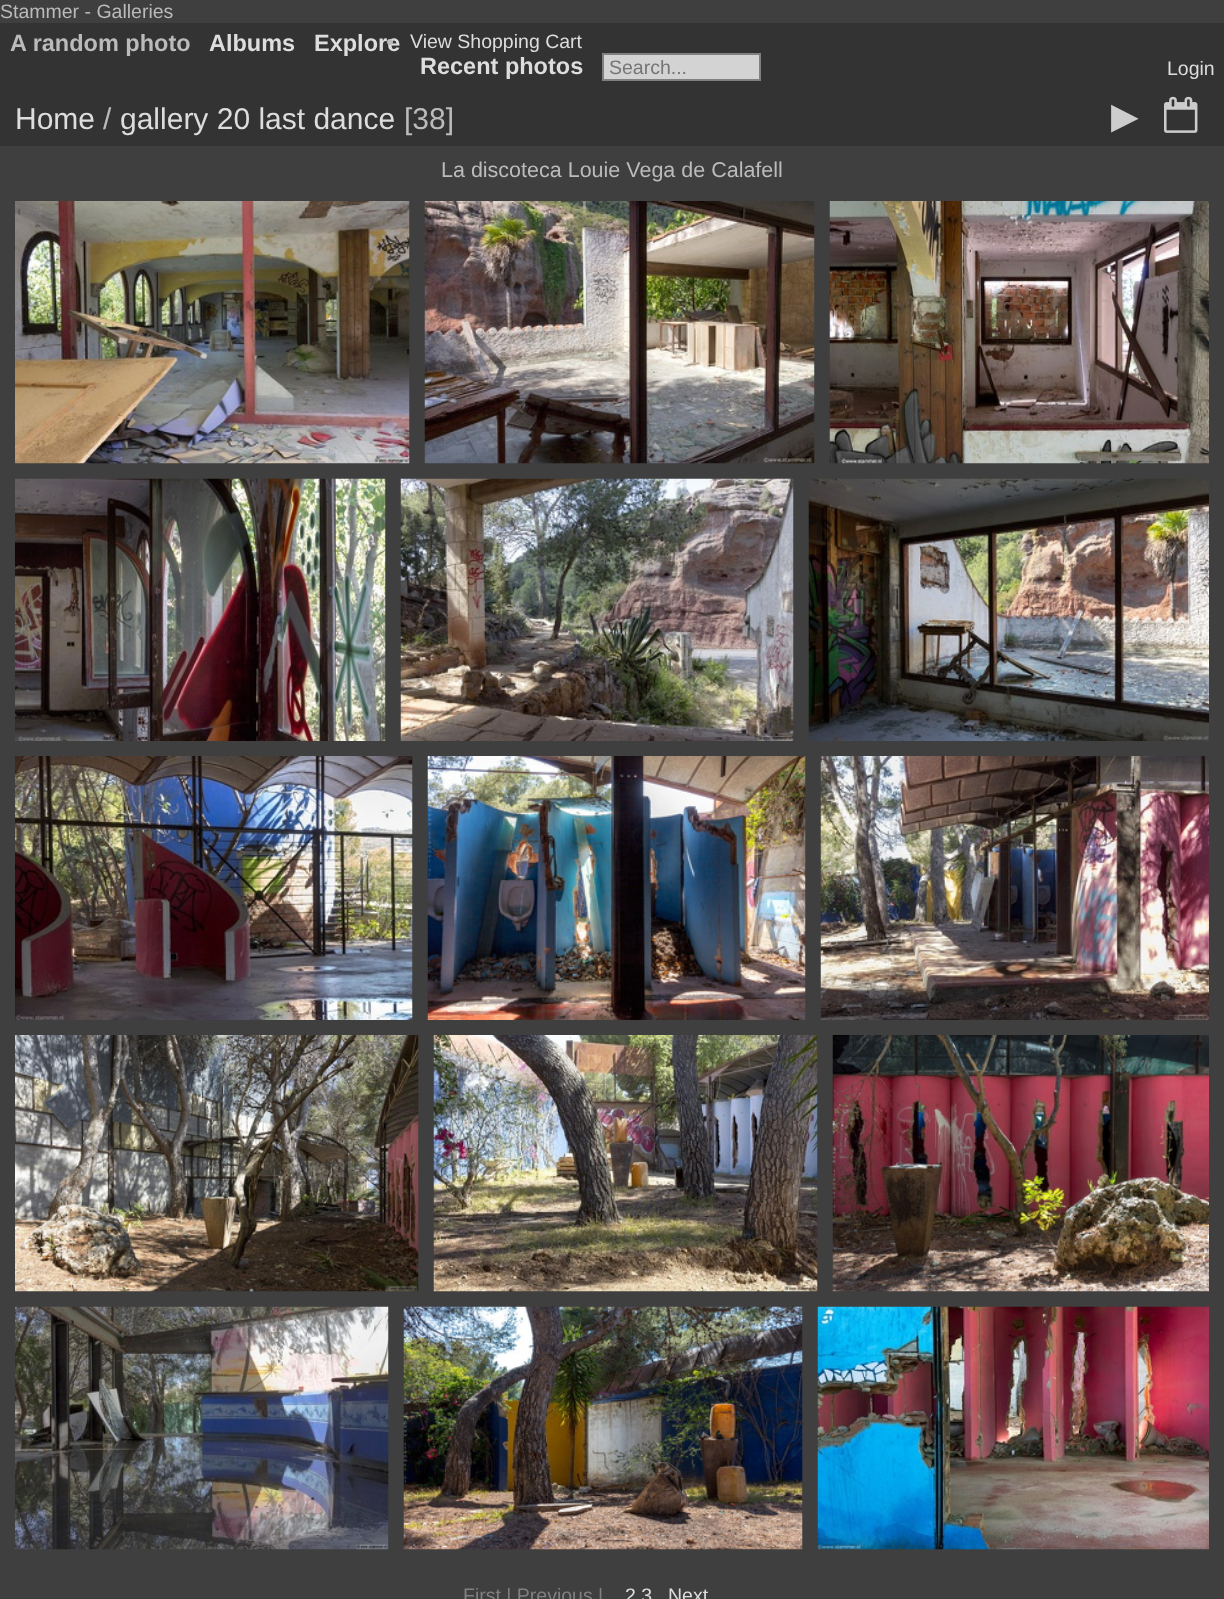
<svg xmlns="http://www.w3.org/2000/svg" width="1224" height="1599">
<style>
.a{font:19.5px Liberation Sans;fill:#bbb}
.b{font:bold 23.5px Liberation Sans;fill:#bbb}
.c{font:bold 23.5px Liberation Sans;fill:#ddd}
.d{font:19.5px Liberation Sans;fill:#ddd}
.e{font:19.5px Liberation Sans;fill:#757575}
.f{font:30px Liberation Sans;fill:#ddd}
.g{font:30px Liberation Sans;fill:#bbb}
.h{font:36px DejaVu Sans;fill:#ccc}
.i{font:21.5px Liberation Sans;fill:#bbb}
.j{font:19.5px Liberation Sans;fill:#808080}
</style>
<rect width="100%" height="100%" fill="#3f3f3f"/>
<path fill="#333" d="M0 23h1224v123H0z"/>
<path fill="#d3d3d3" stroke="#808080" stroke-width="2" d="M603 54h157v26H603z"/>
<image href="1.png" x="1164" y="96" width="34" height="37"/>
<image href="2.png" x="15" y="201" width="395" height="263"/>
<image href="3.png" x="424" y="201" width="391" height="263"/>
<image href="4.png" x="829" y="201" width="380" height="263"/>
<image href="5.png" x="15" y="478" width="371" height="263"/>
<image href="6.png" x="400" y="478" width="394" height="263"/>
<image href="7.png" x="808" y="478" width="401" height="263"/>
<image href="8.png" x="15" y="756" width="398" height="264"/>
<image href="9.png" x="427" y="756" width="379" height="264"/>
<image href="10.png" x="820" y="756" width="389" height="264"/>
<image href="11.png" x="15" y="1035" width="404" height="257"/>
<image href="12.png" x="433" y="1035" width="385" height="257"/>
<image href="13.png" x="832" y="1035" width="377" height="257"/>
<image href="14.png" x="15" y="1306" width="374" height="244"/>
<image href="15.png" x="403" y="1306" width="400" height="244"/>
<image href="16.png" x="817" y="1306" width="392" height="244"/>
<text class="a" x="0" y="18">Stammer - Galleries</text>
<text class="b" x="10" y="51">A random photo</text>
<text class="c" x="209" y="51">Albums</text>
<text class="c" x="314" y="51">Explore</text>
<circle fill="#bbb" cx="390" cy="42" r="3"/>
<text class="d" x="410" y="48">View Shopping Cart</text>
<text class="c" x="420" y="74">Recent photos</text>
<text class="e" x="609" y="74">Search...</text>
<text class="d" x="1167" y="75">Login</text>
<text class="f" x="15" y="129">Home</text>
<text class="g" x="103" y="129">/</text>
<text class="f" x="120" y="129">gallery 20 last dance</text>
<text class="g" x="404" y="129">[38]</text>
<text class="h" x="1111" y="128">▶</text>
<text class="i" x="441" y="177">La discoteca Louie Vega de Calafell</text>
<text class="j" x="463" y="1602">First | Previous |</text>
<text class="d" x="625" y="1602">2 3</text>
<text class="d" x="668" y="1602">Next</text>
</svg>
